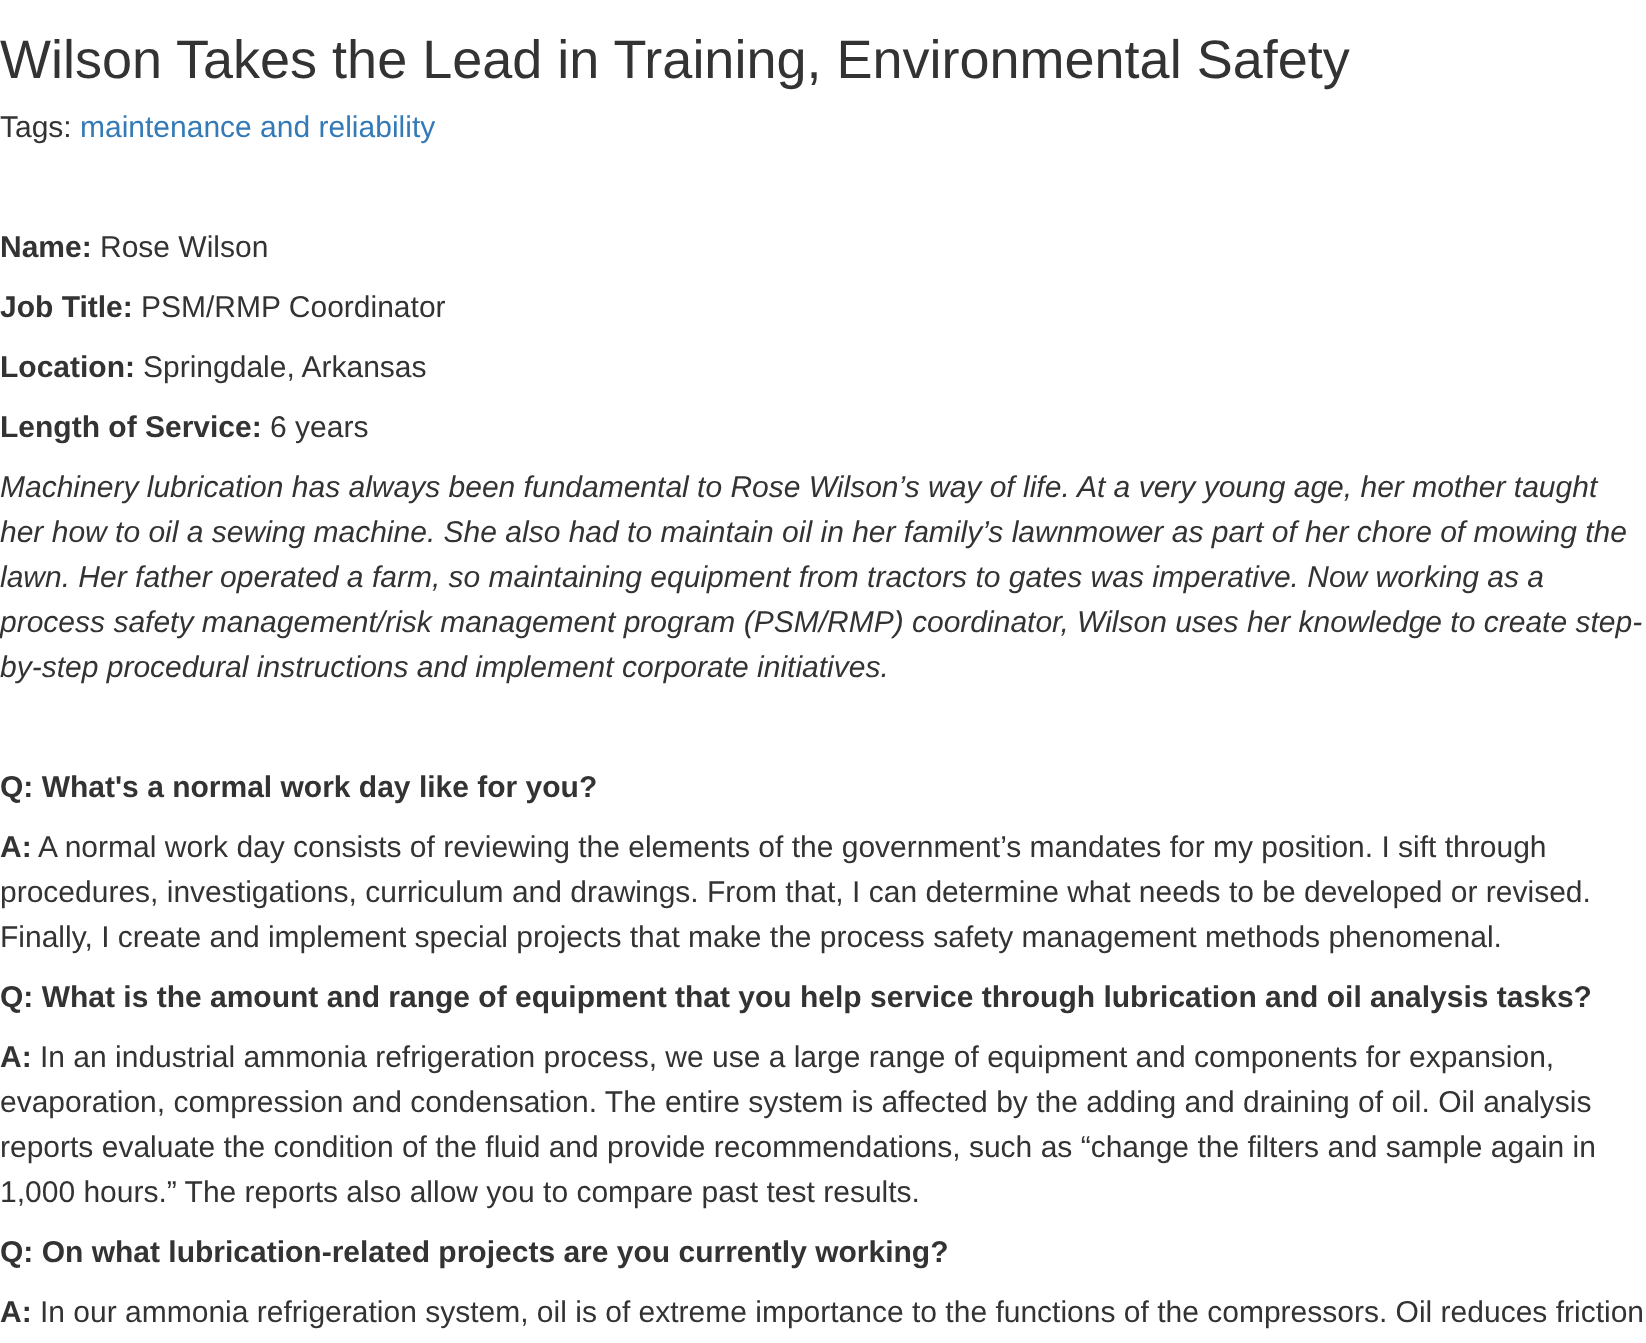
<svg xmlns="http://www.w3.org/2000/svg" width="1646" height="1343">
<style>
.a{font:54px Liberation Sans;fill:#333}
.b{font:30px Liberation Sans;fill:#333}
.c{font:30px Liberation Sans;fill:#337ab7}
.d{font:bold 30px Liberation Sans;fill:#333}
.e{font:italic 30px Liberation Sans;fill:#333}
</style>
<rect width="100%" height="100%" fill="#fff"/>
<text class="a" x="0" y="78">Wilson Takes the Lead in Training, Environmental Safety</text>
<text class="b" x="0" y="137">Tags:</text>
<text class="c" x="80" y="137">maintenance and reliability</text>
<text class="d" x="0" y="257">Name:</text>
<text class="b" x="100" y="257">Rose Wilson</text>
<text class="d" x="0" y="317">Job Title:</text>
<text class="b" x="141" y="317">PSM/RMP Coordinator</text>
<text class="d" x="0" y="377">Location:</text>
<text class="b" x="143" y="377">Springdale, Arkansas</text>
<text class="d" x="0" y="437">Length of Service:</text>
<text class="b" x="270" y="437">6 years</text>
<text class="e" x="0" y="497">Machinery lubrication has always been fundamental to Rose Wilson’s way of life. At a very young age, her mother taught</text>
<text class="e" x="0" y="542">her how to oil a sewing machine. She also had to maintain oil in her family’s lawnmower as part of her chore of mowing the</text>
<text class="e" x="0" y="587">lawn. Her father operated a farm, so maintaining equipment from tractors to gates was imperative. Now working as a</text>
<text class="e" x="0" y="632">process safety management/risk management program (PSM/RMP) coordinator, Wilson uses her knowledge to create step-</text>
<text class="e" x="0" y="677">by-step procedural instructions and implement corporate initiatives.</text>
<text class="d" x="0" y="797">Q: What's a normal work day like for you?</text>
<text class="d" x="0" y="857">A:</text>
<text class="b" x="38" y="857">A normal work day consists of reviewing the elements of the government’s mandates for my position. I sift through</text>
<text class="b" x="0" y="902">procedures, investigations, curriculum and drawings. From that, I can determine what needs to be developed or revised.</text>
<text class="b" x="0" y="947">Finally, I create and implement special projects that make the process safety management methods phenomenal.</text>
<text class="d" x="0" y="1007">Q: What is the amount and range of equipment that you help service through lubrication and oil analysis tasks?</text>
<text class="d" x="0" y="1067">A:</text>
<text class="b" x="40" y="1067">In an industrial ammonia refrigeration process, we use a large range of equipment and components for expansion,</text>
<text class="b" x="0" y="1112">evaporation, compression and condensation. The entire system is affected by the adding and draining of oil. Oil analysis</text>
<text class="b" x="0" y="1157">reports evaluate the condition of the fluid and provide recommendations, such as “change the filters and sample again in</text>
<text class="b" x="0" y="1202">1,000 hours.” The reports also allow you to compare past test results.</text>
<text class="d" x="0" y="1262">Q: On what lubrication-related projects are you currently working?</text>
<text class="d" x="0" y="1322">A:</text>
<text class="b" x="40" y="1322">In our ammonia refrigeration system, oil is of extreme importance to the functions of the compressors. Oil reduces friction</text>
</svg>
